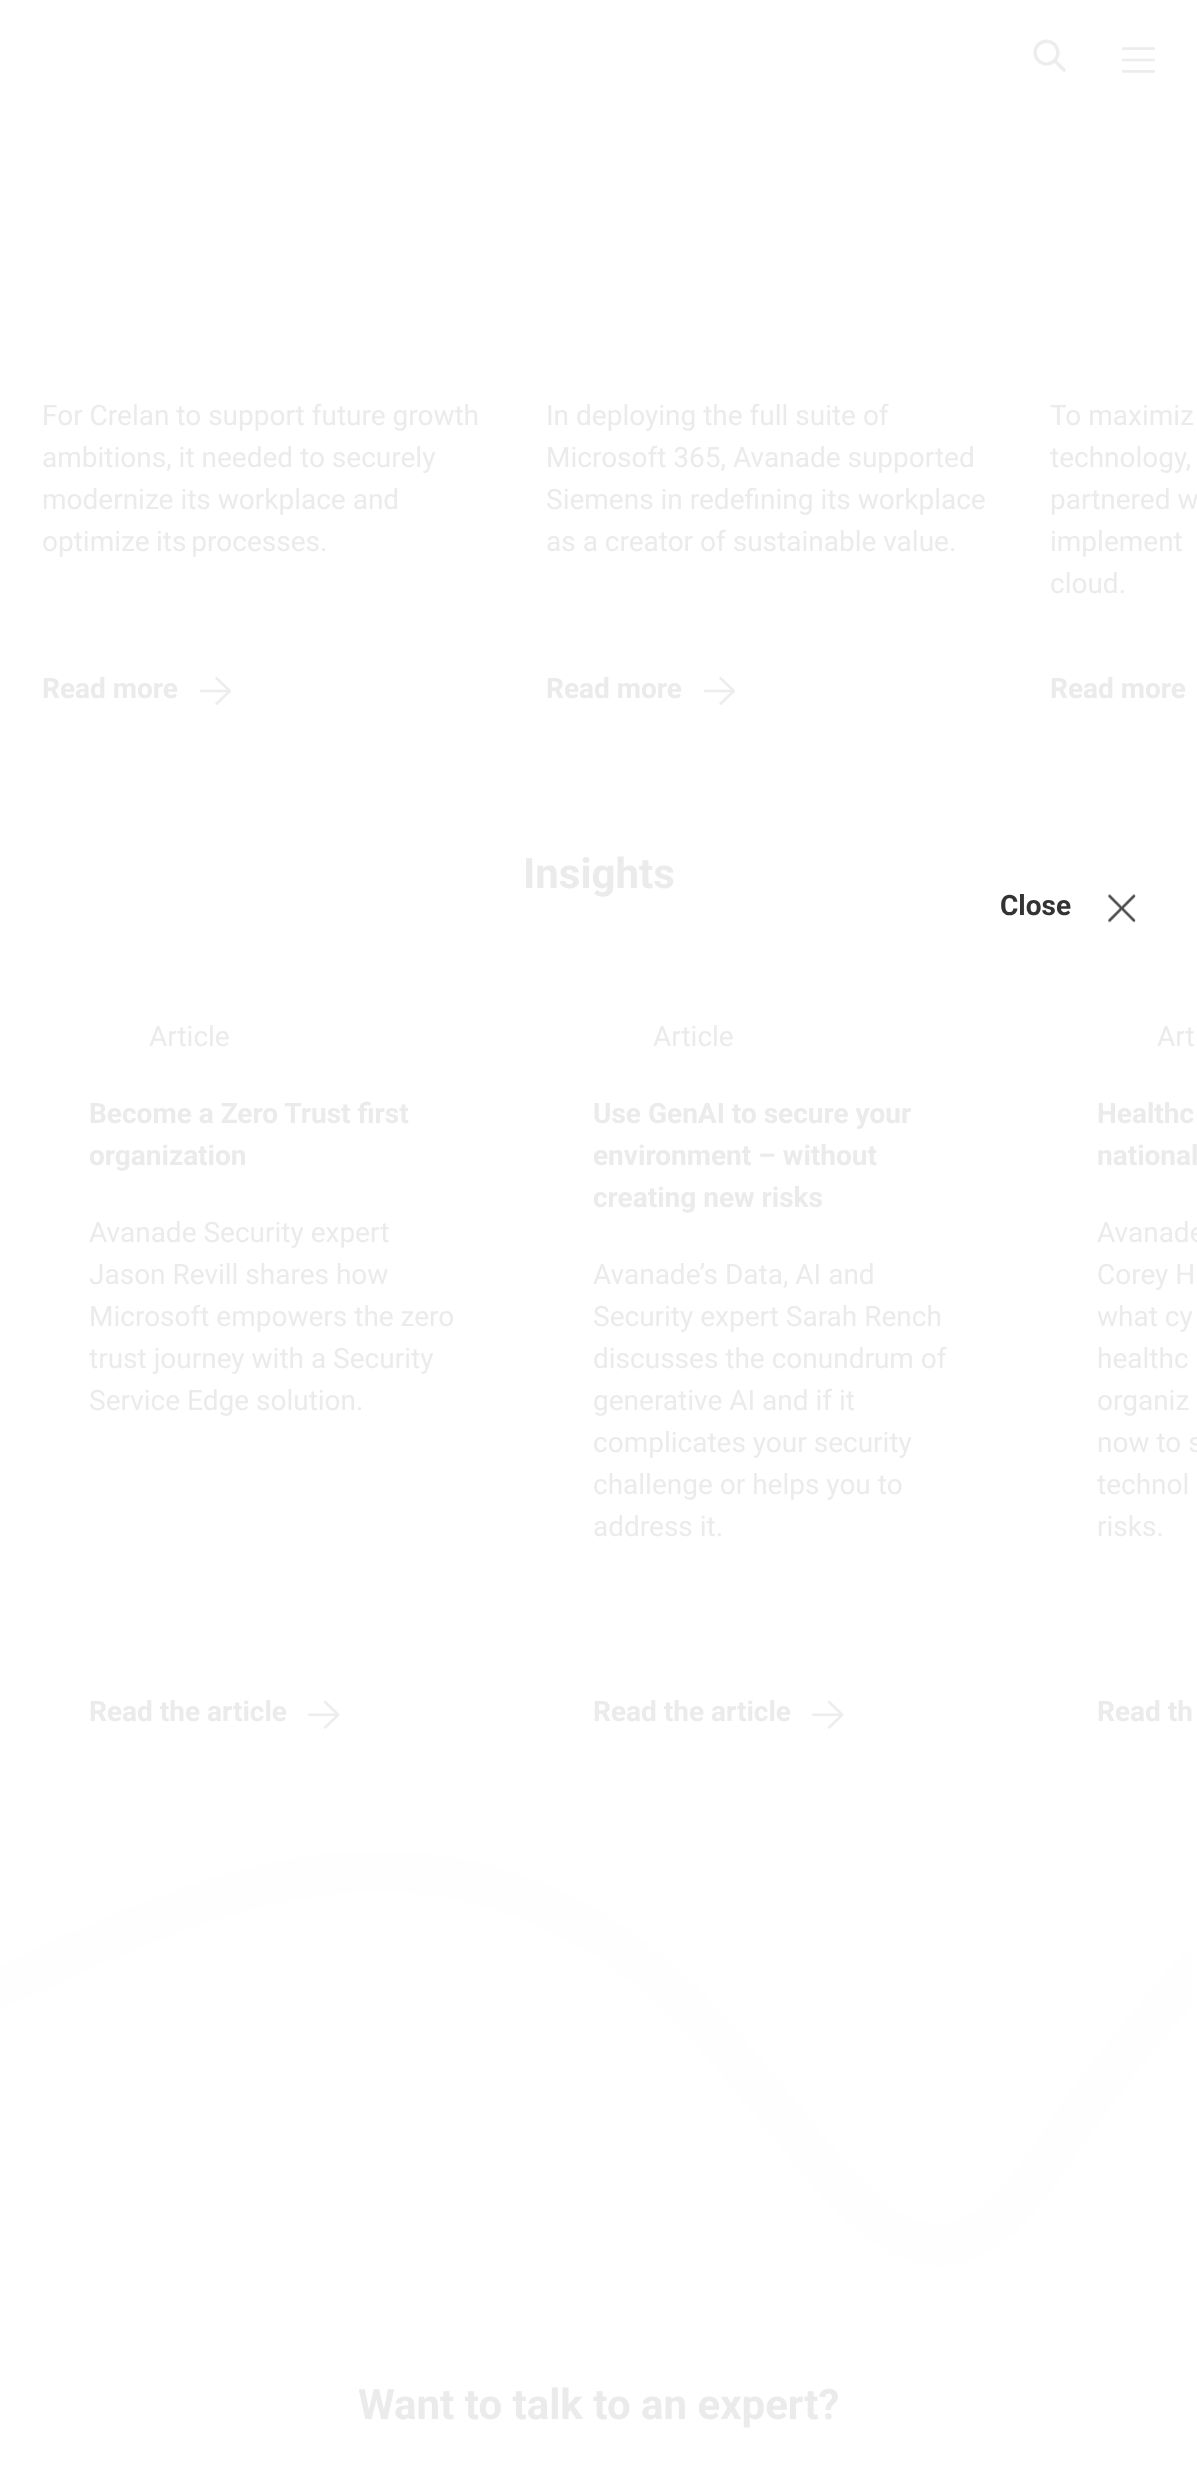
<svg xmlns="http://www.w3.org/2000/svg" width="1197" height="2480">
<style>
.a{font:28px Roboto;fill:#ebebeb}
.b{font:bold 28px Roboto;fill:#ebebeb}
.c{font:bold 42px Roboto;fill:#ebebeb}
.d{font:bold 28px Roboto;fill:#333}
</style>
<rect width="100%" height="100%" fill="#fff"/>
<image href="1.png" x="1033" y="39" width="33" height="33"/>
<image href="2.png" x="1121" y="47" width="34" height="26"/>
<image href="3.png" x="199" y="677" width="32" height="28"/>
<image href="3.png" x="703" y="677" width="32" height="28"/>
<image href="4.png" x="308" y="1700" width="32" height="29"/>
<image href="4.png" x="812" y="1700" width="32" height="29"/>
<image href="5.png" x="0" y="1852" width="1192" height="414"/>
<image href="6.png" x="1108" y="894" width="28" height="29"/>
<text class="a" x="42" y="425">For Crelan to support future growth</text>
<text class="a" x="42" y="467">ambitions, it needed to securely</text>
<text class="a" x="42" y="509">modernize its workplace and</text>
<text class="a" x="42" y="551">optimize</text>
<text class="a" x="156" y="551" word-spacing="-2">its processes.</text>
<text class="b" x="42" y="698">Read more</text>
<text class="a" x="546" y="425">In deploying the full suite of</text>
<text class="a" x="546" y="467">Microsoft 365, Avanade supported</text>
<text class="a" x="546" y="509">Siemens in redefining its workplace</text>
<text class="a" x="546" y="551">as a creator of sustainable value.</text>
<text class="b" x="546" y="698">Read more</text>
<text class="a" x="1050" y="425">To maximiz</text>
<text class="a" x="1050" y="467">technology,</text>
<text class="a" x="1050" y="509">partnered w</text>
<text class="a" x="1050" y="551">implement</text>
<text class="a" x="1050" y="593">cloud.</text>
<text class="b" x="1050" y="698">Read more</text>
<text class="c" x="523" y="888">Insights</text>
<text class="a" x="149" y="1046">Article</text>
<text class="b" x="89" y="1123">Become a Zero Trust first</text>
<text class="b" x="89" y="1165">organization</text>
<text class="a" x="89" y="1242">Avanade Security expert</text>
<text class="a" x="89" y="1284">Jason Revill shares how</text>
<text class="a" x="89" y="1326">Microsoft empowers the zero</text>
<text class="a" x="89" y="1368">trust journey with a Security</text>
<text class="a" x="89" y="1410">Service Edge solution.</text>
<text class="b" x="89" y="1721">Read the article</text>
<text class="a" x="653" y="1046">Article</text>
<text class="b" x="593" y="1123">Use GenAI to secure your</text>
<text class="b" x="593" y="1165">environment – without</text>
<text class="b" x="593" y="1207">creating new risks</text>
<text class="a" x="593" y="1284">Avanade’s Data, AI and</text>
<text class="a" x="593" y="1326">Security expert Sarah Rench</text>
<text class="a" x="593" y="1368">discusses the conundrum of</text>
<text class="a" x="593" y="1410">generative AI and if it</text>
<text class="a" x="593" y="1452">complicates your security</text>
<text class="a" x="593" y="1494">challenge or helps you to</text>
<text class="a" x="593" y="1536">address it.</text>
<text class="b" x="593" y="1721">Read the article</text>
<text class="a" x="1157" y="1046">Art</text>
<text class="b" x="1097" y="1123">Healthc</text>
<text class="b" x="1097" y="1165">national</text>
<text class="a" x="1097" y="1242">Avanade</text>
<text class="a" x="1097" y="1284">Corey H</text>
<text class="a" x="1097" y="1326">what cy</text>
<text class="a" x="1097" y="1368">healthc</text>
<text class="a" x="1097" y="1410">organiz</text>
<text class="a" x="1097" y="1452">now to s</text>
<text class="a" x="1097" y="1494">technol</text>
<text class="a" x="1097" y="1536">risks.</text>
<text class="b" x="1097" y="1721">Read th</text>
<text class="c" x="358" y="2419">Want to talk to an expert?</text>
<text class="d" x="1000" y="915">Close</text>
</svg>
